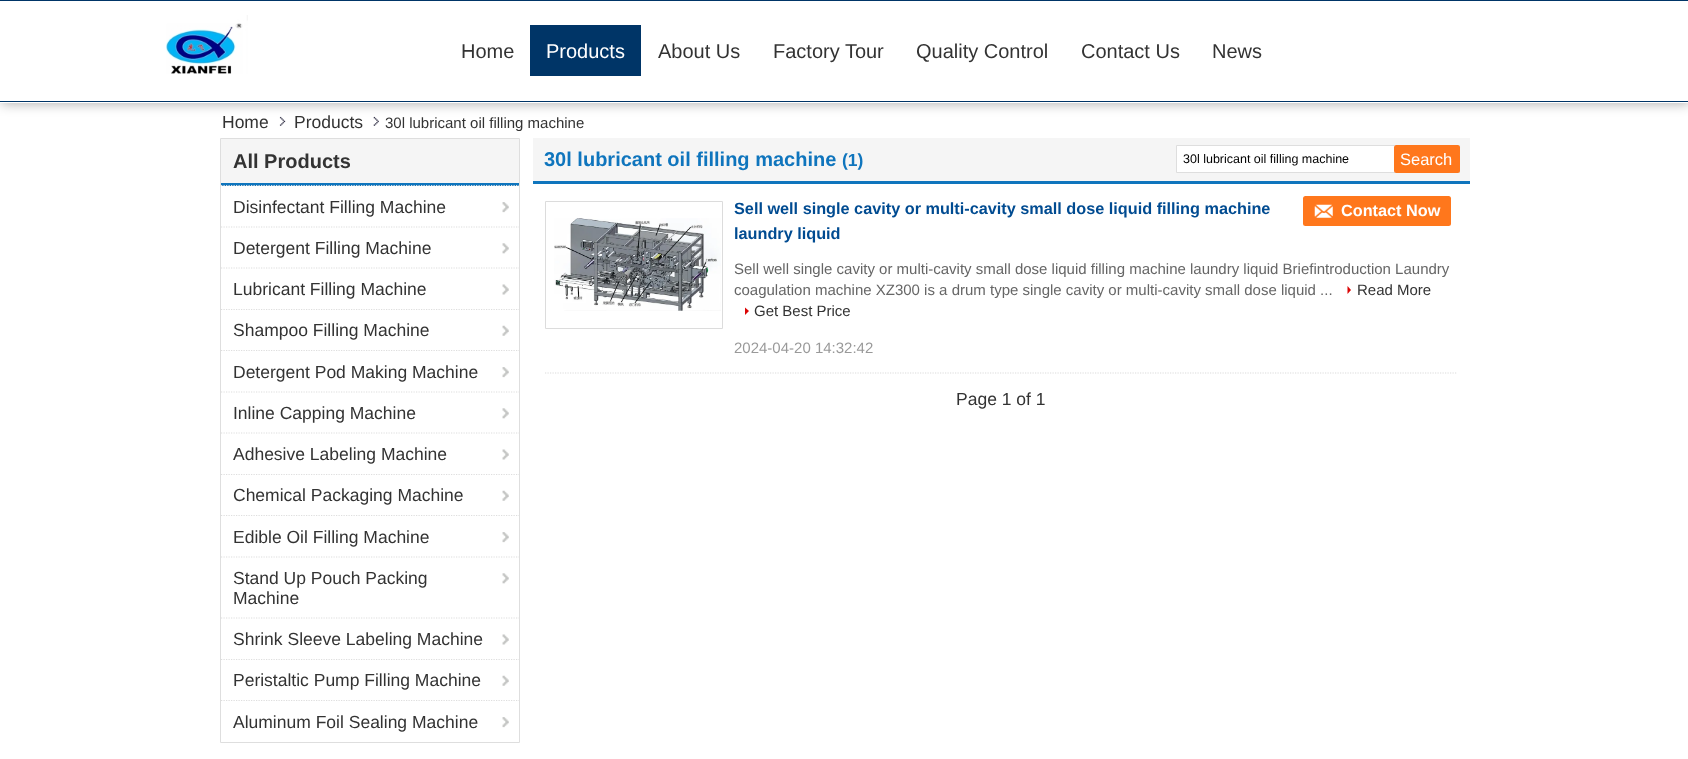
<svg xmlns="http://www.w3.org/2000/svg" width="1688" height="759">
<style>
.a{font:20px Liberation Sans;fill:#333}
.b{font:20px Liberation Sans;fill:#fff}
.c{font:17.5px Liberation Sans;fill:#333}
.d{font:15px Liberation Sans;fill:#333}
.e{font:bold 20px Liberation Sans;fill:#333}
.f{font:bold 20px Liberation Sans;fill:#0f75bd}
.g{font:bold 17.5px Liberation Sans;fill:#0f75bd}
.h{font:12.5px Liberation Sans;fill:#000}
.i{font:16.5px Liberation Sans;fill:#fff}
.j{font:bold 16.25px Liberation Sans;fill:#004b91}
.k{font:bold 16.25px Liberation Sans;fill:#fff}
.l{font:15px Liberation Sans;fill:#666}
.m{font:15px Liberation Sans;fill:#999}
</style>
<defs>
<clipPath id="clip1"><path d="M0 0h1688v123h-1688zm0-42h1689v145h-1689z" clip-rule="evenodd"/></clipPath>
</defs>
<rect width="100%" height="100%" fill="#fff"/>
<g clip-path="url(#clip1)">
<path fill="#0000004d" filter="blur(6px)" d="M1 -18h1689v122H1z"/>
</g>
<path fill="#003567" d="M0 101h1688v1H0z"/>
<path fill="#003567" d="M0 0h1688v1H0z"/>
<image href="1.png" x="166" y="15" width="82" height="59"/>
<path fill="#003567" d="M530 25h111v51H530z"/>
<image href="2.png" x="279" y="116" width="7" height="10"/>
<image href="3.png" x="373" y="116" width="6" height="10"/>
<path fill="none" stroke="#dedede" d="M220.5 138.5h299v604H220.5z"/>
<path fill="#f5f5f5" d="M221 139h298v44H221z"/>
<path fill="#0f75bd" d="M221 183h298v3H221z"/>
<path fill="none" stroke="#dedede" stroke-width="1.2" stroke-dasharray="1.25 1.25" d="M221 185.5h298"/>
<image href="4.png" x="502" y="202" width="7" height="11"/>
<path fill="none" stroke="#dedede" stroke-width="1.2" stroke-dasharray="1.25 1.25" d="M221 227h298"/>
<image href="5.png" x="502" y="243" width="7" height="11"/>
<path fill="none" stroke="#dedede" stroke-width="1.2" stroke-dasharray="1.25 1.25" d="M221 268h298"/>
<image href="6.png" x="502" y="284" width="7" height="11"/>
<path fill="none" stroke="#dedede" stroke-width="1.2" stroke-dasharray="1.25 1.25" d="M221 309.5h298"/>
<image href="7.png" x="502" y="325" width="7" height="11"/>
<path fill="none" stroke="#dedede" stroke-width="1.2" stroke-dasharray="1.25 1.25" d="M221 350.5h298"/>
<image href="4.png" x="502" y="367" width="7" height="11"/>
<path fill="none" stroke="#dedede" stroke-width="1.2" stroke-dasharray="1.25 1.25" d="M221 392h298"/>
<image href="5.png" x="502" y="408" width="7" height="11"/>
<path fill="none" stroke="#dedede" stroke-width="1.2" stroke-dasharray="1.25 1.25" d="M221 433h298"/>
<image href="6.png" x="502" y="449" width="7" height="11"/>
<path fill="none" stroke="#dedede" stroke-width="1.2" stroke-dasharray="1.25 1.25" d="M221 474.5h298"/>
<image href="7.png" x="502" y="490" width="7" height="11"/>
<path fill="none" stroke="#dedede" stroke-width="1.2" stroke-dasharray="1.25 1.25" d="M221 515.5h298"/>
<image href="4.png" x="502" y="532" width="7" height="11"/>
<path fill="none" stroke="#dedede" stroke-width="1.2" stroke-dasharray="1.25 1.25" d="M221 557h298"/>
<image href="5.png" x="502" y="573" width="7" height="11"/>
<path fill="none" stroke="#dedede" stroke-width="1.2" stroke-dasharray="1.25 1.25" d="M221 618h298"/>
<image href="6.png" x="502" y="634" width="7" height="11"/>
<path fill="none" stroke="#dedede" stroke-width="1.2" stroke-dasharray="1.25 1.25" d="M221 659.5h298"/>
<image href="7.png" x="502" y="675" width="7" height="11"/>
<path fill="none" stroke="#dedede" stroke-width="1.2" stroke-dasharray="1.25 1.25" d="M221 700.5h298"/>
<image href="4.png" x="502" y="717" width="7" height="11"/>
<path fill="#f5f5f5" d="M533 138h937v43H533z"/>
<path fill="#0f75bd" d="M533 181h937v3H533z"/>
<path fill="#fff" d="M1177 146h218v26H1177z"/>
<path fill="none" stroke="#dedede" d="M1176.5 145.5h283v27H1176.5z"/>
<rect fill="#ff771c" x="1394" y="145" width="66" height="28" rx="2.5"/>
<path fill="none" stroke="#dcdcdc" stroke-width="1.2" stroke-dasharray="1.25 1.25" d="M545 373h912.5"/>
<path fill="none" stroke="#dcdcdc" d="M545.5 201.5h177v127H545.5z"/>
<image href="8.png" x="554" y="218" width="167" height="93"/>
<rect fill="#ff771c" x="1303" y="196" width="148" height="30" rx="2.5"/>
<image href="9.png" x="1314" y="204" width="19" height="14"/>
<path fill="#db0505" d="M1347.5 294v-8l3.5 4z"/>
<path fill="#db0505" d="M745 315v-7.5l4 3.5z"/>
<text class="a" x="461" y="58">Home</text>
<text class="b" x="546" y="58">Products</text>
<text class="a" x="658" y="58">About Us</text>
<text class="a" x="773" y="58">Factory Tour</text>
<text class="a" x="916" y="58">Quality Control</text>
<text class="a" x="1081" y="58">Contact Us</text>
<text class="a" x="1212" y="58">News</text>
<text class="c" x="222" y="128">Home</text>
<text class="c" x="294" y="128">Products</text>
<text class="d" x="385" y="128">30l lubricant oil filling machine</text>
<text class="e" x="233" y="168">All Products</text>
<text class="c" x="233" y="213">Disinfectant Filling Machine</text>
<text class="c" x="233" y="254">Detergent Filling Machine</text>
<text class="c" x="233" y="295">Lubricant Filling Machine</text>
<text class="c" x="233" y="336">Shampoo Filling Machine</text>
<text class="c" x="233" y="378">Detergent Pod Making Machine</text>
<text class="c" x="233" y="419">Inline Capping Machine</text>
<text class="c" x="233" y="460">Adhesive Labeling Machine</text>
<text class="c" x="233" y="501">Chemical Packaging Machine</text>
<text class="c" x="233" y="543">Edible Oil Filling Machine</text>
<text class="c" x="233" y="584">Stand Up Pouch Packing</text>
<text class="c" x="233" y="604">Machine</text>
<text class="c" x="233" y="645">Shrink Sleeve Labeling Machine</text>
<text class="c" x="233" y="686">Peristaltic Pump Filling Machine</text>
<text class="c" x="233" y="728">Aluminum Foil Sealing Machine</text>
<text class="f" x="544" y="166">30l lubricant oil filling machine</text>
<text class="g" x="842" y="166">(1)</text>
<text class="h" x="1183" y="163">30l lubricant oil filling machine</text>
<text class="i" x="1400" y="165">Search</text>
<text class="j" x="734" y="214">Sell well single cavity or multi-cavity small dose liquid filling machine</text>
<text class="k" x="1341" y="216">Contact Now</text>
<text class="j" x="734" y="239">laundry liquid</text>
<text class="l" x="734" y="274">Sell well single cavity or multi-cavity small dose liquid filling machine laundry liquid Briefintroduction Laundry</text>
<text class="l" x="734" y="295">coagulation machine XZ300 is a drum type single cavity or multi-cavity small dose liquid ...</text>
<text class="d" x="1357" y="295">Read More</text>
<text class="d" x="754" y="316">Get Best Price</text>
<text class="m" x="734" y="353">2024-04-20 14:32:42</text>
<text class="c" x="956" y="405">Page 1 of 1</text>
</svg>
